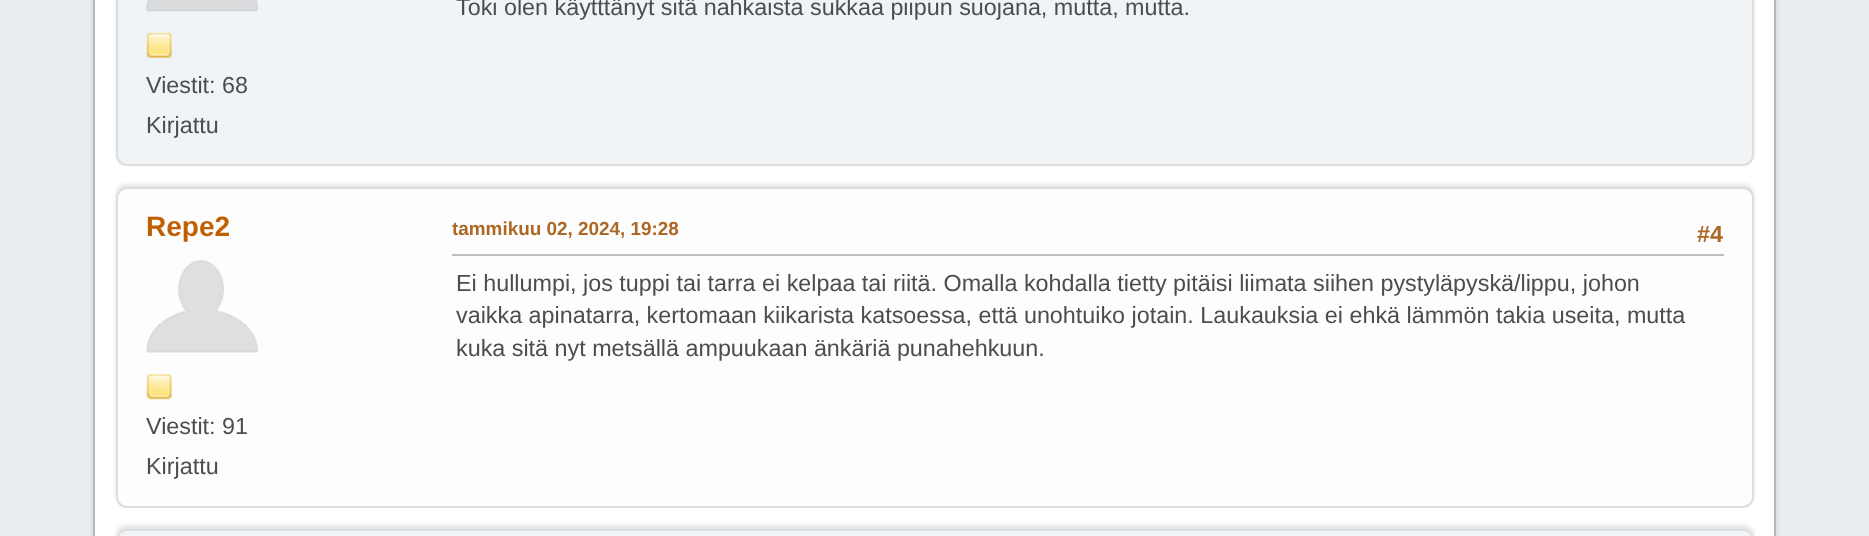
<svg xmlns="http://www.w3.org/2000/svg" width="1869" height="536">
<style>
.a{font:23.33px Liberation Sans;fill:#4d4d4d}
.b{font:bold 28px Liberation Sans;fill:#c06002}
.c{font:bold 18.9px Liberation Sans;fill:#ad6825}
.d{font:bold 23.33px Liberation Sans;fill:#ad6825}
</style>
<rect width="100%" height="100%" fill="#e9eef2"/>
<rect fill="#00000024" filter="blur(2.5px)" x="93" y="-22" width="1683" height="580" rx="14"/>
<path fill="#fff" stroke="#b8b8b8" stroke-width="2" d="M94 -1h1681v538H94z"/>
<rect fill="#0000001a" filter="blur(2px)" x="116" y="-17" width="1638" height="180" rx="11"/>
<rect fill="#f0f4f7" stroke="#ddd" stroke-width="2" x="117" y="-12" width="1636" height="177" rx="10"/>
<image href="1.png" x="146" y="0" width="112" height="12"/>
<image href="2.png" x="146" y="32" width="26" height="26"/>
<rect fill="#0000001a" filter="blur(2px)" x="116" y="184" width="1638" height="320" rx="11"/>
<rect fill="#fdfdfd" stroke="#ddd" stroke-width="2" x="117" y="188" width="1636" height="319" rx="10"/>
<image href="3.png" x="146" y="260" width="112" height="93"/>
<image href="4.png" x="146" y="373" width="26" height="27"/>
<path fill="#bfbfbf" d="M452 254h1272v2H452z"/>
<rect fill="#0000001a" filter="blur(2px)" x="116" y="525" width="1638" height="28" rx="11"/>
<rect fill="#f0f4f7" stroke="#ddd" stroke-width="2" x="117" y="530" width="1636" height="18" rx="10"/>
<text class="a" x="456" y="15">Toki olen käytttänyt sitä nahkaista sukkaa piipun suojana, mutta, mutta.</text>
<text class="a" x="146" y="93">Viestit: 68</text>
<text class="a" x="146" y="133">Kirjattu</text>
<text class="b" x="146" y="236">Repe2</text>
<text class="a" x="146" y="434">Viestit: 91</text>
<text class="a" x="146" y="474">Kirjattu</text>
<text class="c" x="452" y="235">tammikuu 02, 2024, 19:28</text>
<text class="d" x="1697" y="242">#4</text>
<text class="a" x="456" y="291">Ei hullumpi, jos tuppi tai tarra ei kelpaa tai riitä. Omalla kohdalla tietty pitäisi liimata siihen pystyläpyskä/lippu, johon</text>
<text class="a" x="456" y="323">vaikka apinatarra, kertomaan kiikarista katsoessa, että unohtuiko jotain. Laukauksia ei ehkä lämmön takia useita, mutta</text>
<text class="a" x="456" y="356">kuka sitä nyt metsällä ampuukaan änkäriä punahehkuun.</text>
</svg>
